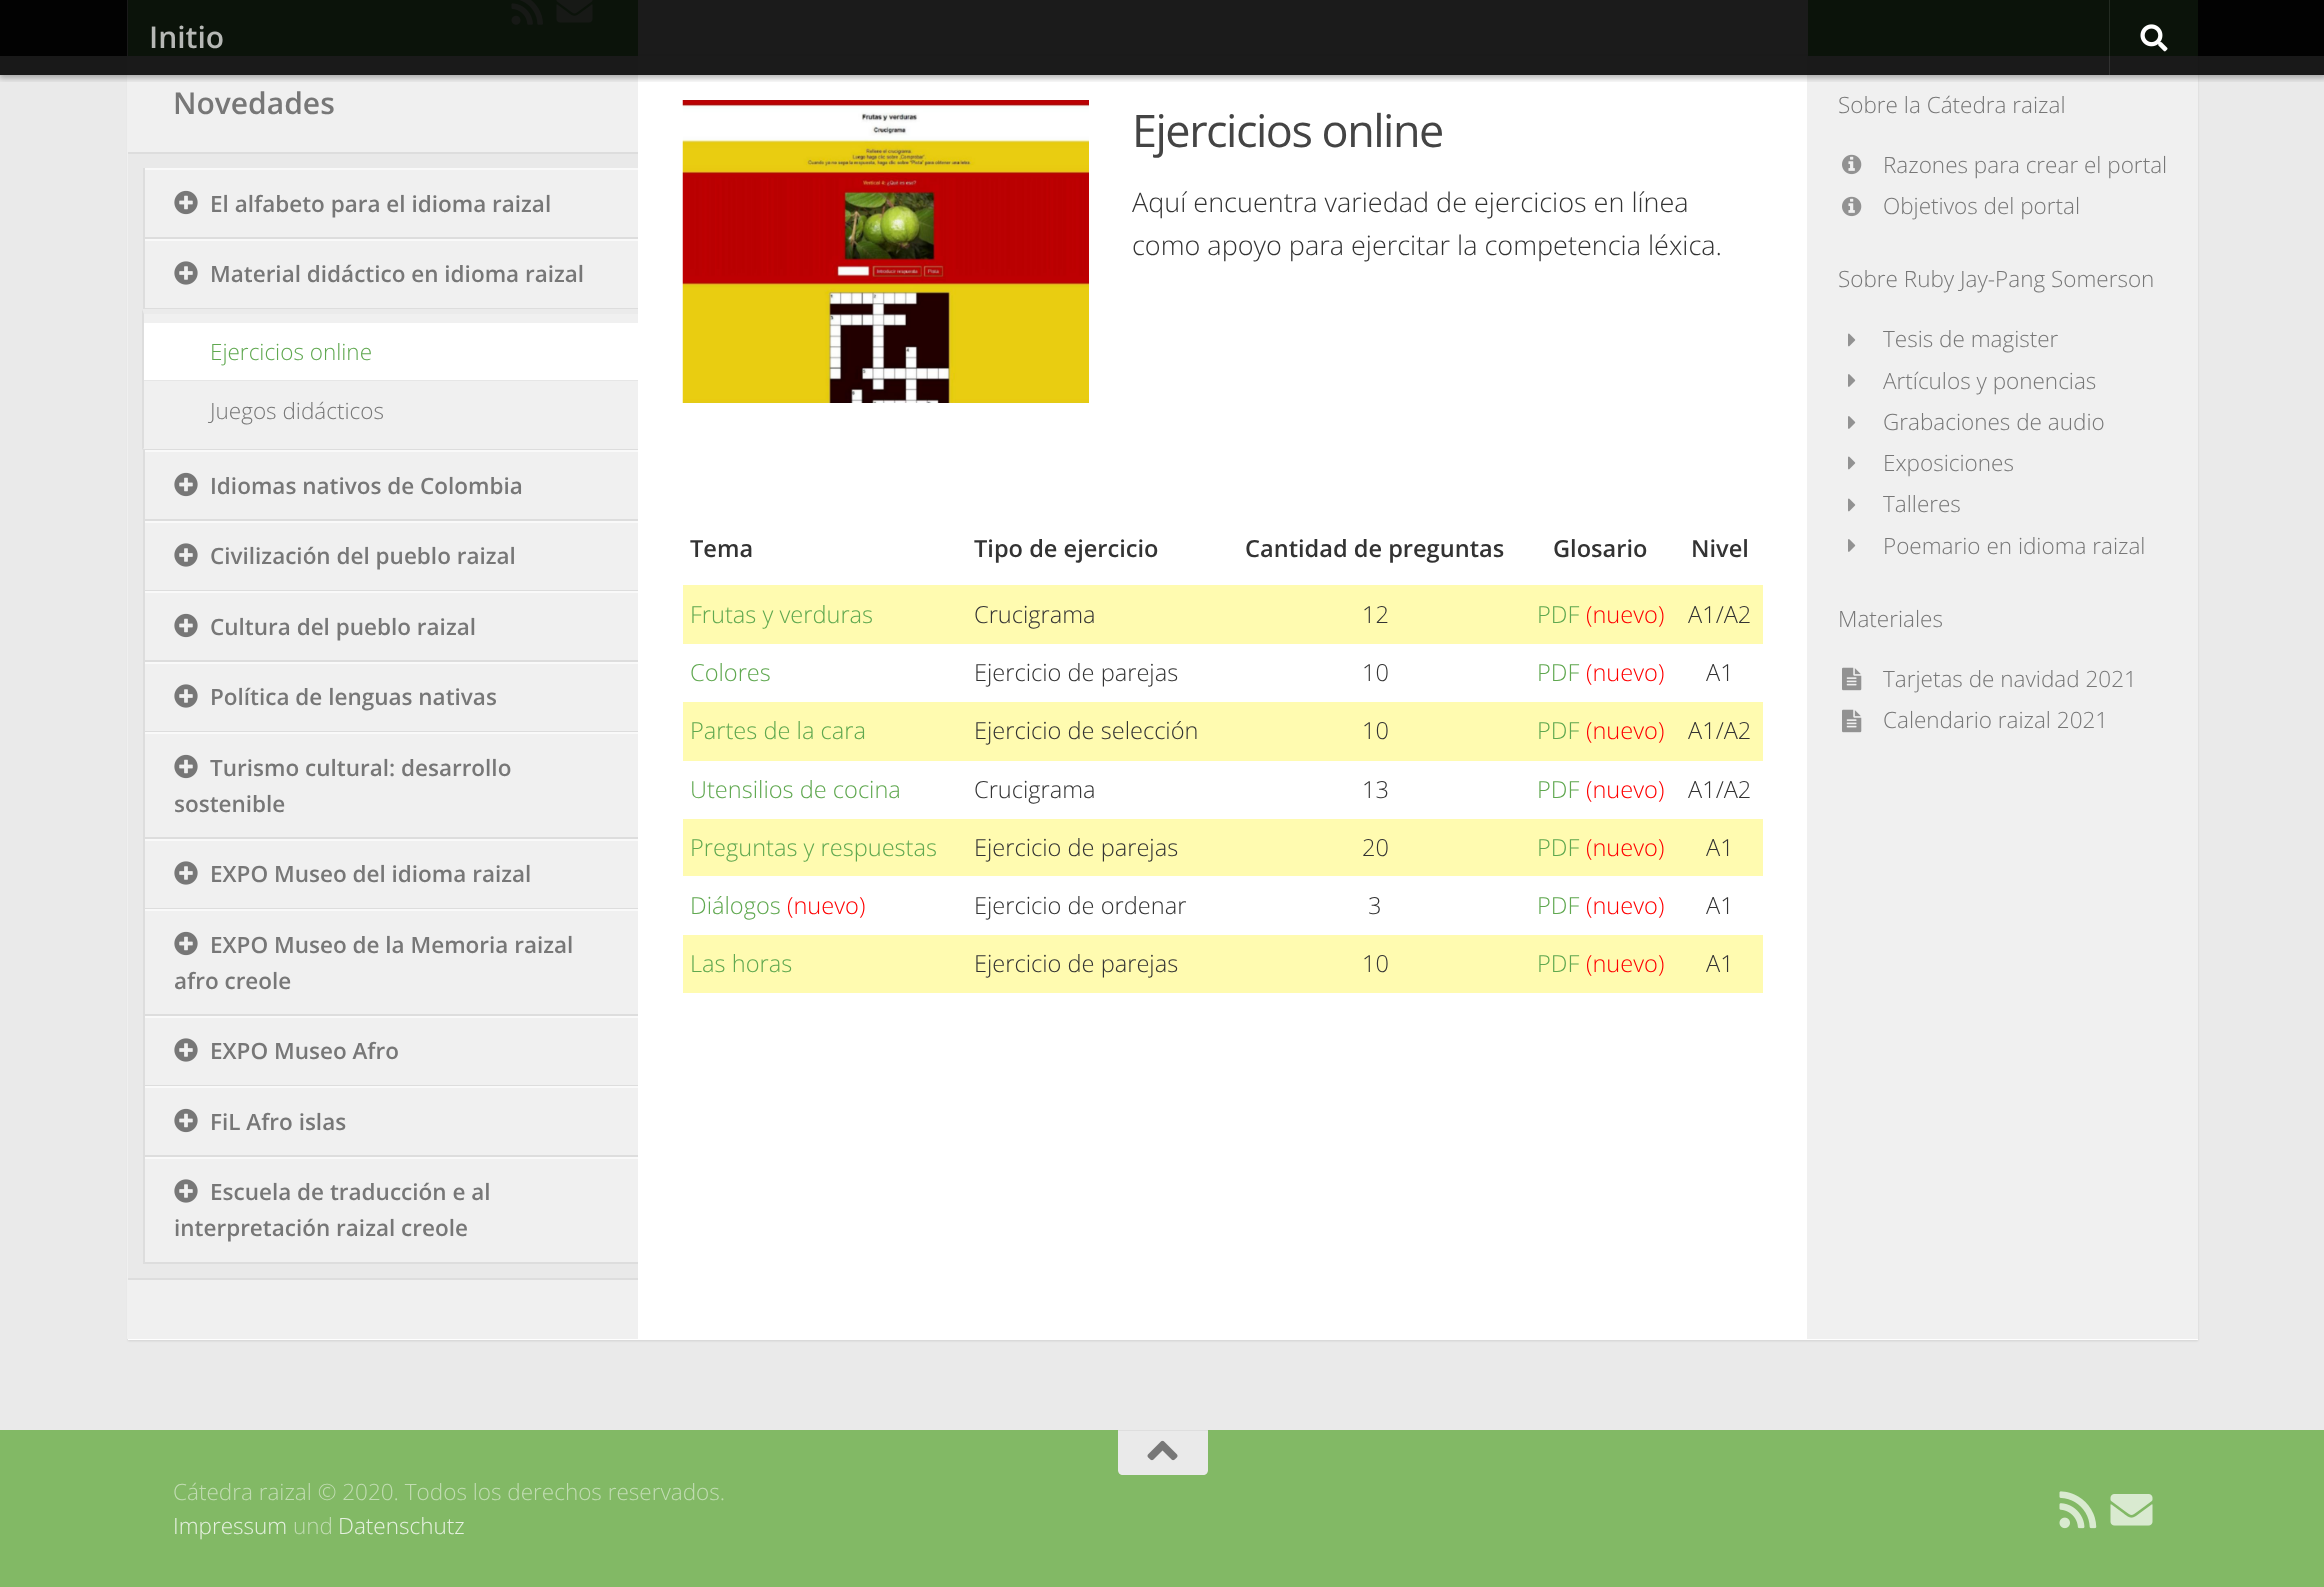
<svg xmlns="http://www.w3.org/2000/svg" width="2324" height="1587">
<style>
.a{font:600 30px Open Sans;fill:#b6b8b5}
.b{font:600 30px Open Sans;fill:#777}
.c{font:600 22.5px Open Sans;fill:#777}
.d{font:300 22.5px Open Sans;fill:#60a850}
.e{font:300 22.5px Open Sans;fill:#777}
.f{font:45px Open Sans;letter-spacing:-1.5px;fill:#444}
.g{font:300 27px Open Sans;fill:#333}
.h{font:600 23.6px Open Sans;fill:#333}
.i{font:300 23.6px Open Sans;fill:#60a850}
.j{font:300 23.6px Open Sans;fill:#333}
.k{font:300 23.6px Open Sans;fill:#f00}
.l{font:300 22.5px Open Sans;fill:#c1dcb2}
.m{font:300 22.5px Open Sans;fill:#e6f1e0}
</style>
<defs>
<clipPath id="clip1"><path d="M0 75h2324v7H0z"/></clipPath>
</defs>
<rect width="100%" height="100%" fill="#eaeaea"/>
<path fill="#0000001a" filter="blur(1px)" d="M128 -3h2070v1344H128z"/>
<path fill="#000" d="M0 0h2324v56H0z"/>
<path fill="#fff" d="M128 56h2070v1284H128z"/>
<path fill="#f0f0f0" d="M1807 56h391v1283H1807z"/>
<path fill="#f0f0f0" d="M127 0h511v1339H127z"/>
<path fill="#60a850" d="M128 0h510v56H128z"/>
<image href="2.png" x="511" y="0" width="32" height="25"/>
<image href="3.png" x="556" y="0" width="37" height="23"/>
<path fill="#fff" d="M638 0h1170v54H638z"/>
<path fill="#eee" d="M638 54h1170v2H638z"/>
<path fill="#60a850" d="M1808 0h390v56H1808z"/>
<g clip-path="url(#clip1)">
<path fill="#0000004d" filter="blur(3px)" d="M-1 0h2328v78H-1z"/>
</g>
<path fill="#020202e6" d="M0 0h2324v75H0z"/>
<path fill="#ffffff1a" d="M2109 0h1v75H2109z"/>
<image href="1.png" x="2140" y="24" width="28" height="28"/>
<path fill="#e9e9e9" d="M128 154h510v1124H128z"/>
<path fill="#ddd" d="M128 152h510v2H128z"/>
<path fill="#ddd" d="M128 1278h510v2H128z"/>
<path fill="#f0f0f0" d="M145 170h493v67H145z"/>
<path fill="#f9f9f9" d="M144 168h494v2H144z"/>
<path fill="#ddd" d="M143 237h495v2H143z"/>
<path fill="#ddd" d="M143 168h2v71H143z"/>
<image href="4.png" x="174" y="190" width="24" height="25"/>
<path fill="#f0f0f0" d="M145 241h493v67H145z"/>
<path fill="#f9f9f9" d="M144 239h494v2H144z"/>
<path fill="#ddd" d="M143 308h495v1H143z"/>
<path fill="#ddd" d="M143 239h2v70H143z"/>
<image href="5.png" x="174" y="261" width="24" height="24"/>
<path fill="#f0f0f0" d="M143 311h495v138H143z"/>
<path fill="#ebebeb" d="M142 309h496v5h-494z"/>
<path fill="#ddd" d="M143 449h495v1H143z"/>
<path fill="#ddd" d="M142 450v-141l2 5v134z"/>
<path fill="#e6e6e6" d="M144 380v1h494v-57v56z"/>
<path fill="#fff" d="M144 323h494v57H144z"/>
<path fill="#f0f0f0" d="M145 452h493v67H145z"/>
<path fill="#f9f9f9" d="M144 450h494v2H144z"/>
<path fill="#ddd" d="M143 519h495v2H143z"/>
<path fill="#ddd" d="M143 450h2v71H143z"/>
<image href="4.png" x="174" y="472" width="24" height="25"/>
<path fill="#f0f0f0" d="M145 523h493v67H145z"/>
<path fill="#f9f9f9" d="M144 521h494v2H144z"/>
<path fill="#ddd" d="M143 590h495v1H143z"/>
<path fill="#ddd" d="M143 521h2v70H143z"/>
<image href="5.png" x="174" y="543" width="24" height="24"/>
<path fill="#f0f0f0" d="M145 593h493v67H145z"/>
<path fill="#f9f9f9" d="M144 591h494v2H144z"/>
<path fill="#ddd" d="M143 660h495v2H143z"/>
<path fill="#ddd" d="M143 591h2v71H143z"/>
<image href="4.png" x="174" y="613" width="24" height="25"/>
<path fill="#f0f0f0" d="M145 664h493v67H145z"/>
<path fill="#f9f9f9" d="M144 662h494v2H144z"/>
<path fill="#ddd" d="M143 731h495v1H143z"/>
<path fill="#ddd" d="M143 662h2v70H143z"/>
<image href="5.png" x="174" y="684" width="24" height="24"/>
<path fill="#f0f0f0" d="M145 734h493v103H145z"/>
<path fill="#f9f9f9" d="M144 732h494v2H144z"/>
<path fill="#ddd" d="M143 837h495v2H143z"/>
<path fill="#ddd" d="M143 732h2v107H143z"/>
<image href="4.png" x="174" y="754" width="24" height="25"/>
<path fill="#f0f0f0" d="M145 841h493v67H145z"/>
<path fill="#f9f9f9" d="M144 839h494v2H144z"/>
<path fill="#ddd" d="M143 908h495v1H143z"/>
<path fill="#ddd" d="M143 839h2v70H143z"/>
<image href="5.png" x="174" y="861" width="24" height="24"/>
<path fill="#f0f0f0" d="M145 911h493v103H145z"/>
<path fill="#f9f9f9" d="M144 909h494v2H144z"/>
<path fill="#ddd" d="M143 1014h495v2H143z"/>
<path fill="#ddd" d="M143 909h2v107H143z"/>
<image href="4.png" x="174" y="931" width="24" height="25"/>
<path fill="#f0f0f0" d="M145 1018h493v67H145z"/>
<path fill="#f9f9f9" d="M144 1016h494v2H144z"/>
<path fill="#ddd" d="M143 1085h495v1H143z"/>
<path fill="#ddd" d="M143 1016h2v70H143z"/>
<image href="5.png" x="174" y="1038" width="24" height="24"/>
<path fill="#f0f0f0" d="M145 1088h493v67H145z"/>
<path fill="#f9f9f9" d="M144 1086h494v2H144z"/>
<path fill="#ddd" d="M143 1155h495v2H143z"/>
<path fill="#ddd" d="M143 1086h2v71H143z"/>
<image href="4.png" x="174" y="1108" width="24" height="25"/>
<path fill="#f0f0f0" d="M145 1159h493v103H145z"/>
<path fill="#f9f9f9" d="M144 1157h494v2H144z"/>
<path fill="#ddd" d="M143 1262h495v2H143z"/>
<path fill="#ddd" d="M143 1157h2v106H143z"/>
<image href="5.png" x="174" y="1179" width="24" height="24"/>
<image href="6.png" x="682" y="100" width="407" height="303"/>
<path fill="#fffbb0" d="M683 585h1080v59H683z"/>
<path fill="#fffbb0" d="M683 702h1080v59H683z"/>
<path fill="#fffbb0" d="M683 819h1080v57H683z"/>
<path fill="#fffbb0" d="M683 935h1080v58H683z"/>
<image href="7.png" x="1842" y="154" width="20" height="21"/>
<image href="7.png" x="1842" y="196" width="20" height="21"/>
<image href="8.png" x="1848" y="333" width="8" height="14"/>
<image href="9.png" x="1848" y="374" width="8" height="13"/>
<image href="9.png" x="1848" y="416" width="8" height="13"/>
<image href="8.png" x="1848" y="456" width="8" height="14"/>
<image href="8.png" x="1848" y="498" width="8" height="14"/>
<image href="9.png" x="1848" y="539" width="8" height="13"/>
<image href="10.png" x="1842" y="667" width="20" height="24"/>
<image href="10.png" x="1842" y="709" width="20" height="24"/>
<path fill="#82b965" d="M0 1430h2324v157H0z"/>
<path fill="#eaeaea" d="M1118 1430h90v40c0 3-2 5-5 5h-80c-3 0-5-2-5-5z"/>
<path fill="#dedede" d="M1118 1430h90v1H1118z"/>
<image href="11.png" x="1147" y="1440" width="31" height="21"/>
<image href="12.png" x="2059" y="1491" width="38" height="38"/>
<image href="13.png" x="2110" y="1494" width="43" height="32"/>
<text class="a" x="149" y="48">Initio</text>
<text class="b" x="173" y="114">Novedades</text>
<text class="c" x="210" y="212">El alfabeto para el idioma raizal</text>
<text class="c" x="210" y="282">Material didáctico en idioma raizal</text>
<text class="d" x="210" y="360">Ejercicios online</text>
<text class="e" x="210" y="419">Juegos didácticos</text>
<text class="c" x="210" y="494">Idiomas nativos de Colombia</text>
<text class="c" x="210" y="564">Civilización del pueblo raizal</text>
<text class="c" x="210" y="635">Cultura del pueblo raizal</text>
<text class="c" x="210" y="705">Política de lenguas nativas</text>
<text class="c" x="210" y="776">Turismo cultural: desarrollo</text>
<text class="c" x="174" y="812">sostenible</text>
<text class="c" x="210" y="882">EXPO Museo del idioma raizal</text>
<text class="c" x="210" y="953">EXPO Museo de la Memoria raizal</text>
<text class="c" x="174" y="989">afro creole</text>
<text class="c" x="210" y="1059">EXPO Museo Afro</text>
<text class="c" x="210" y="1130">FiL Afro islas</text>
<text class="c" x="210" y="1200">Escuela de traducción e al</text>
<text class="c" x="174" y="1236">interpretación raizal creole</text>
<text class="f" x="1132" y="147">Ejercicios online</text>
<text class="g" x="1132" y="212">Aquí encuentra variedad de ejercicios en línea</text>
<text class="g" x="1132" y="255">como apoyo para ejercitar la competencia léxica.</text>
<text class="h" x="690" y="557">Tema</text>
<text class="h" x="974" y="557">Tipo de ejercicio</text>
<text class="h" x="1245" y="557">Cantidad de preguntas</text>
<text class="h" x="1553" y="557">Glosario</text>
<text class="h" x="1691" y="557">Nivel</text>
<text class="i" x="690" y="623">Frutas y verduras</text>
<text class="j" x="974" y="623">Crucigrama</text>
<text class="j" x="1362" y="623">12</text>
<text class="i" x="1537" y="623">PDF</text>
<text class="k" x="1586" y="623">(nuevo)</text>
<text class="j" x="1688" y="623">A1/A2</text>
<text class="i" x="690" y="681">Colores</text>
<text class="j" x="974" y="681">Ejercicio de parejas</text>
<text class="j" x="1362" y="681">10</text>
<text class="i" x="1537" y="681">PDF</text>
<text class="k" x="1586" y="681">(nuevo)</text>
<text class="j" x="1706" y="681">A1</text>
<text class="i" x="690" y="739">Partes de la cara</text>
<text class="j" x="974" y="739">Ejercicio de selección</text>
<text class="j" x="1362" y="739">10</text>
<text class="i" x="1537" y="739">PDF</text>
<text class="k" x="1586" y="739">(nuevo)</text>
<text class="j" x="1688" y="739">A1/A2</text>
<text class="i" x="690" y="798">Utensilios de cocina</text>
<text class="j" x="974" y="798">Crucigrama</text>
<text class="j" x="1362" y="798">13</text>
<text class="i" x="1537" y="798">PDF</text>
<text class="k" x="1586" y="798">(nuevo)</text>
<text class="j" x="1688" y="798">A1/A2</text>
<text class="i" x="690" y="856">Preguntas y respuestas</text>
<text class="j" x="974" y="856">Ejercicio de parejas</text>
<text class="j" x="1362" y="856">20</text>
<text class="i" x="1537" y="856">PDF</text>
<text class="k" x="1586" y="856">(nuevo)</text>
<text class="j" x="1706" y="856">A1</text>
<text class="i" x="690" y="914">Diálogos</text>
<text class="k" x="787" y="914">(nuevo)</text>
<text class="j" x="974" y="914">Ejercicio de ordenar</text>
<text class="j" x="1368" y="914">3</text>
<text class="i" x="1537" y="914">PDF</text>
<text class="k" x="1586" y="914">(nuevo)</text>
<text class="j" x="1706" y="914">A1</text>
<text class="i" x="690" y="972">Las horas</text>
<text class="j" x="974" y="972">Ejercicio de parejas</text>
<text class="j" x="1362" y="972">10</text>
<text class="i" x="1537" y="972">PDF</text>
<text class="k" x="1586" y="972">(nuevo)</text>
<text class="j" x="1706" y="972">A1</text>
<text class="e" x="1838" y="113">Sobre la Cátedra raizal</text>
<text class="e" x="1883" y="173">Razones para crear el portal</text>
<text class="e" x="1883" y="214">Objetivos del portal</text>
<text class="e" x="1838" y="287">Sobre Ruby Jay-Pang Somerson</text>
<text class="e" x="1883" y="347">Tesis de magister</text>
<text class="e" x="1883" y="389">Artículos y ponencias</text>
<text class="e" x="1883" y="430">Grabaciones de audio</text>
<text class="e" x="1883" y="471">Exposiciones</text>
<text class="e" x="1883" y="512">Talleres</text>
<text class="e" x="1883" y="554">Poemario en idioma raizal</text>
<text class="e" x="1838" y="627">Materiales</text>
<text class="e" x="1883" y="687">Tarjetas de navidad 2021</text>
<text class="e" x="1883" y="728">Calendario raizal 2021</text>
<text class="l" x="173" y="1500">Cátedra raizal © 2020. Todos los derechos reservados.</text>
<text class="m" x="173" y="1534">Impressum</text>
<text class="l" x="293" y="1534">und</text>
<text class="m" x="338" y="1534">Datenschutz</text>
</svg>
